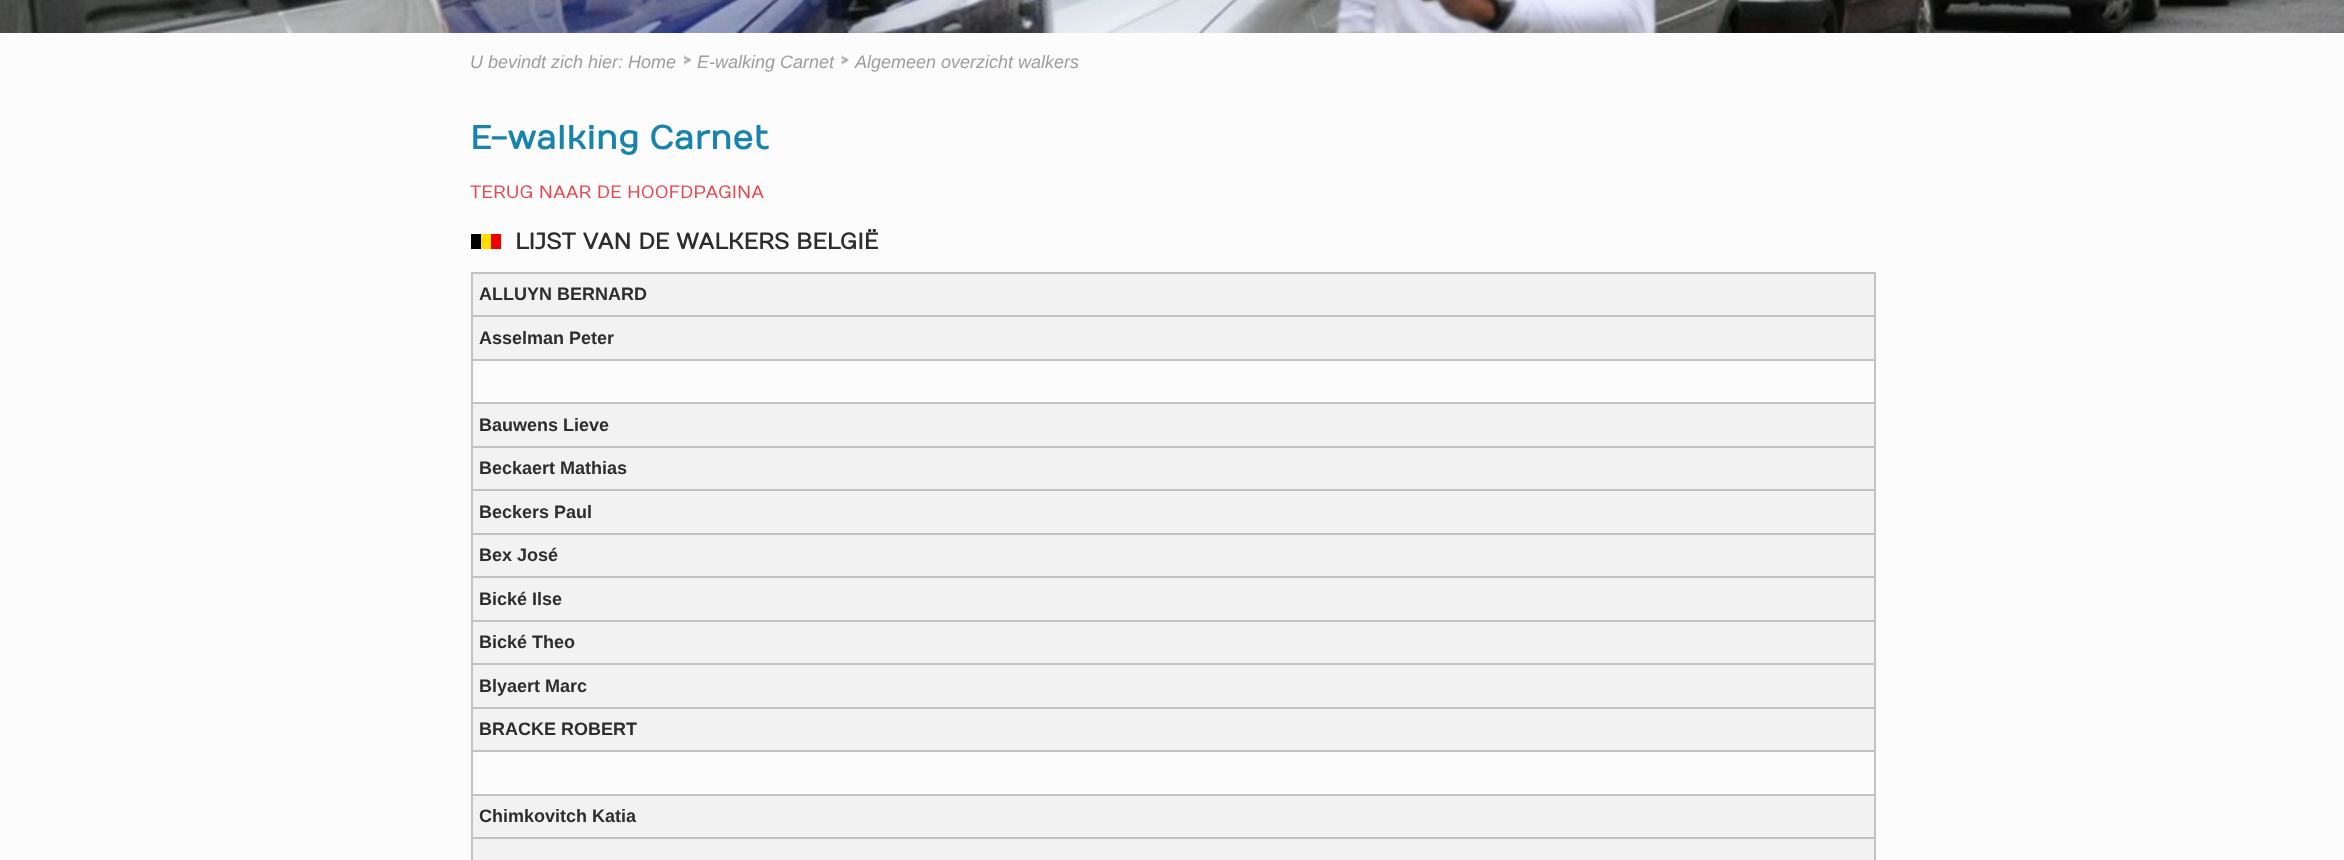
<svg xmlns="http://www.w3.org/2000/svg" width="2344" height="860">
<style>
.a{font:italic 18px Liberation Sans;fill:#9e9e9e}
.b{font:bold 33px Numans;fill:#1883ac}
.c{font:18px Numans;fill:#e9444b}
.d{font:bold 22.5px Numans;fill:#2d2d2d}
.e{font:bold 18px Liberation Sans;fill:#2d2d2d}
</style>
<rect width="100%" height="100%" fill="#fcfcfc"/>
<image href="1.png" x="0" y="0" width="2344" height="33"/>
<image href="2.png" x="684" y="55" width="8" height="10"/>
<image href="3.png" x="841" y="55" width="8" height="10"/>
<image href="4.png" x="471" y="234" width="30" height="15"/>
<path fill="#c2c2c2" d="M471 272h1404v2H471z"/>
<path fill="#c2c2c2" d="M1874 272h2v588H1874z"/>
<path fill="#c2c2c2" d="M471 272h2v588H471z"/>
<path fill="#f2f2f2" d="M473 274h1401v41H473z"/>
<path fill="#f2f2f2" d="M473 317h1401v42H473z"/>
<path fill="#c2c2c2" d="M471 315h1404v2H471z"/>
<path fill="#c2c2c2" d="M471 359h1404v2H471z"/>
<path fill="#f2f2f2" d="M473 404h1401v42H473z"/>
<path fill="#c2c2c2" d="M471 402h1404v2H471z"/>
<path fill="#f2f2f2" d="M473 448h1401v41H473z"/>
<path fill="#c2c2c2" d="M471 446h1404v2H471z"/>
<path fill="#f2f2f2" d="M473 491h1401v42H473z"/>
<path fill="#c2c2c2" d="M471 489h1404v2H471z"/>
<path fill="#f2f2f2" d="M473 535h1401v41H473z"/>
<path fill="#c2c2c2" d="M471 533h1404v2H471z"/>
<path fill="#f2f2f2" d="M473 578h1401v42H473z"/>
<path fill="#c2c2c2" d="M471 576h1404v2H471z"/>
<path fill="#f2f2f2" d="M473 622h1401v41H473z"/>
<path fill="#c2c2c2" d="M471 620h1404v2H471z"/>
<path fill="#f2f2f2" d="M473 665h1401v42H473z"/>
<path fill="#c2c2c2" d="M471 663h1404v2H471z"/>
<path fill="#f2f2f2" d="M473 709h1401v41H473z"/>
<path fill="#c2c2c2" d="M471 707h1404v2H471z"/>
<path fill="#c2c2c2" d="M471 750h1404v2H471z"/>
<path fill="#f2f2f2" d="M473 796h1401v41H473z"/>
<path fill="#c2c2c2" d="M471 794h1404v2H471z"/>
<path fill="#f2f2f2" d="M473 839h1401v21H473z"/>
<path fill="#c2c2c2" d="M471 837h1404v2H471z"/>
<text class="a" x="470" y="68">U bevindt zich hier: Home</text>
<text class="a" x="697" y="68">E-walking Carnet</text>
<text class="a" x="855" y="68">Algemeen overzicht walkers</text>
<text class="b" x="470" y="149">E-walking Carnet</text>
<text class="c" x="470" y="198">TERUG NAAR DE HOOFDPAGINA</text>
<text class="d" x="515" y="249">LIJST VAN DE WALKERS BELGIË</text>
<text class="e" x="479" y="300">ALLUYN BERNARD</text>
<text class="e" x="479" y="344">Asselman Peter</text>
<text class="e" x="479" y="431">Bauwens Lieve</text>
<text class="e" x="479" y="474">Beckaert Mathias</text>
<text class="e" x="479" y="518">Beckers Paul</text>
<text class="e" x="479" y="561">Bex José</text>
<text class="e" x="479" y="605">Bické Ilse</text>
<text class="e" x="479" y="648">Bické Theo</text>
<text class="e" x="479" y="692">Blyaert Marc</text>
<text class="e" x="479" y="735">BRACKE ROBERT</text>
<text class="e" x="479" y="822">Chimkovitch Katia</text>
</svg>
